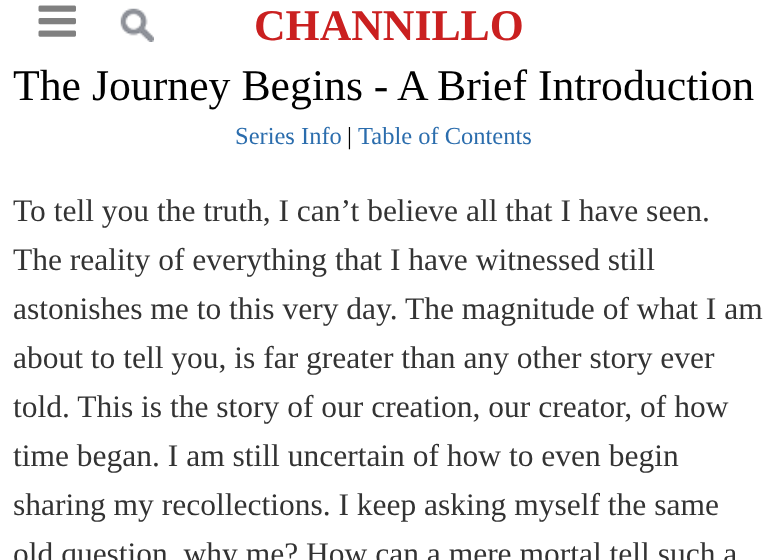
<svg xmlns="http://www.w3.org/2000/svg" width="766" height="560">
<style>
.a{font:bold 43.75px Liberation Serif;fill:#ca2020}
.b{font:43.75px Liberation Serif;fill:#000}
.c{font:24.5px Liberation Serif;fill:#2b6dad}
.d{font:24.5px Liberation Serif;fill:#000}
.e{font:31.5px Liberation Serif;fill:#333}
</style>
<rect width="100%" height="100%" fill="#fff"/>
<image href="1.png" x="38" y="5" width="38" height="32"/>
<image href="2.png" x="120" y="8" width="34" height="34"/>
<text class="a" x="254" y="40">CHANNILLO</text>
<text class="b" x="13" y="100">The Journey Begins - A Brief Introduction</text>
<text class="c" x="235" y="144">Series Info</text>
<text class="d" x="347" y="144">|</text>
<text class="c" x="358" y="144">Table of Contents</text>
<text class="e" x="13" y="221">To tell you the truth, I can’t believe all that I have seen.</text>
<text class="e" x="13" y="270">The reality of everything that I have witnessed still</text>
<text class="e" x="13" y="319">astonishes me to this very day. The magnitude of what I am</text>
<text class="e" x="13" y="368">about to tell you, is far greater than any other story ever</text>
<text class="e" x="13" y="417">told. This is the story of our creation, our creator, of how</text>
<text class="e" x="13" y="466">time began. I am still uncertain of how to even begin</text>
<text class="e" x="13" y="515">sharing my recollections. I keep asking myself the same</text>
<text class="e" x="13" y="564">old question, why me? How can a mere mortal tell such a</text>
</svg>
